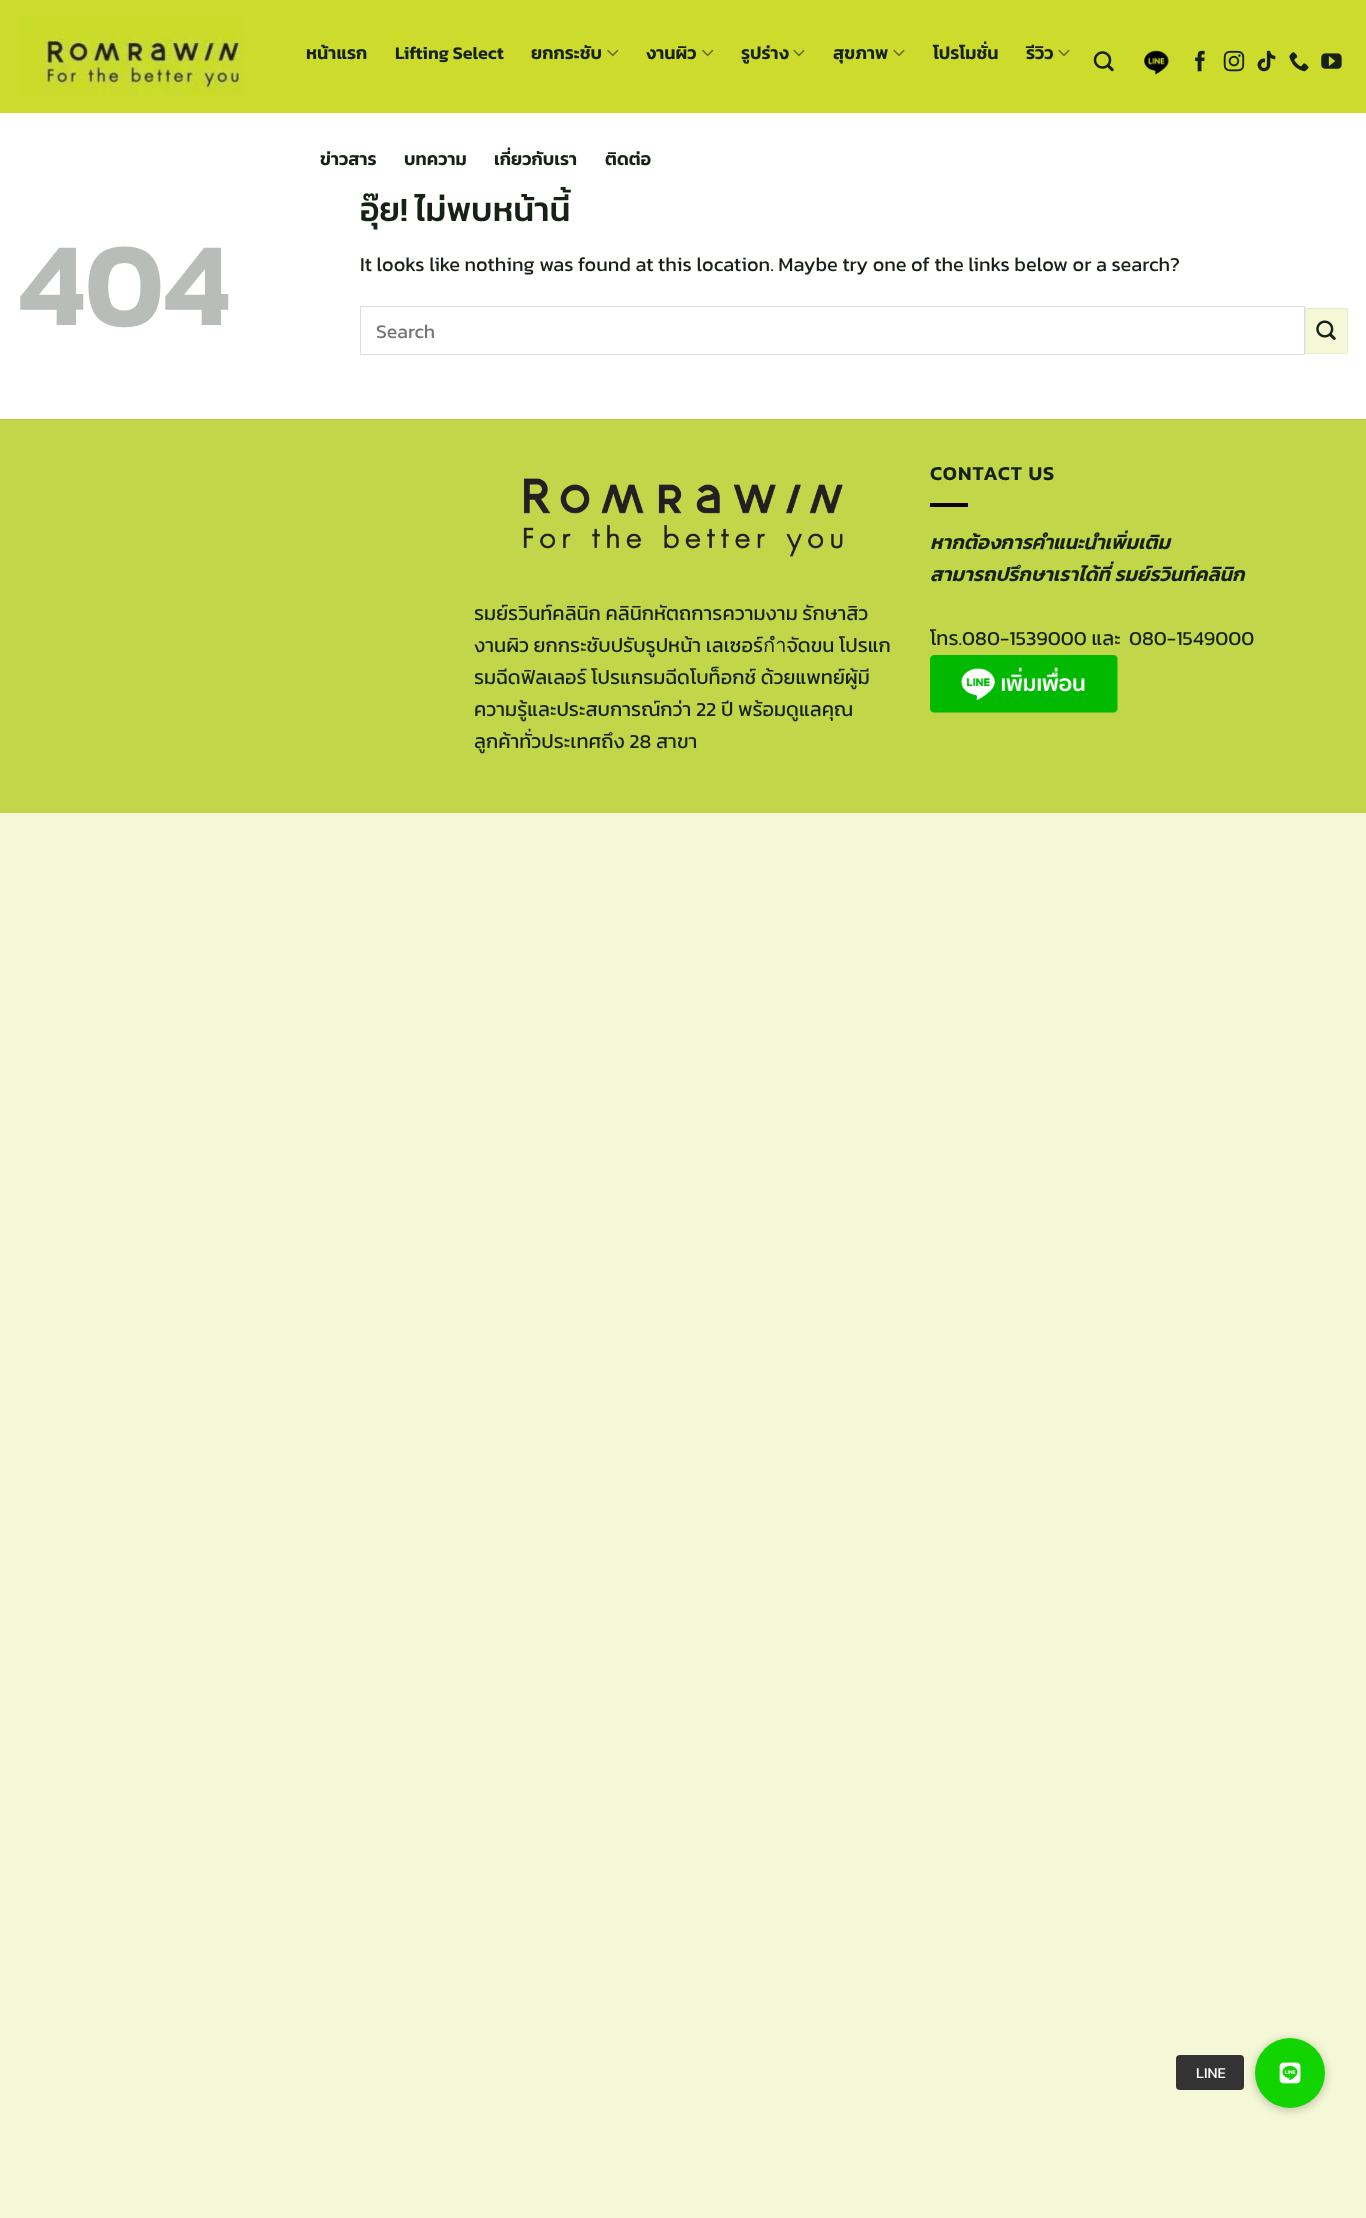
<svg xmlns="http://www.w3.org/2000/svg" width="1366" height="2218">
<style>
.a{font:600 18px Kanit;fill:#172216}
.b{font:600 120px Kanit;fill:#b9bdb9}
.c{font:500 34px Kanit;fill:#172216}
.d{font:20px Kanit;fill:#172216}
.e{font:19.5px Kanit;fill:#757575}
.f{font:600 20px Kanit;letter-spacing:1px;fill:#172216}
.g{font:italic 600 20px Kanit;fill:#172216}
.h{font:15px Kanit;fill:#fff}
</style>
<rect width="100%" height="100%" fill="#f5f8d7"/>
<path fill="#fff" d="M0 113h1366v306H0z"/>
<path fill="#cddb2c" d="M0 0h1366v113H0z"/>
<image href="1.png" x="19" y="14" width="225" height="82"/>
<image href="2.png" x="607" y="49" width="12" height="8"/>
<image href="2.png" x="702" y="49" width="12" height="8"/>
<image href="3.png" x="793" y="49" width="12" height="8"/>
<image href="3.png" x="893" y="49" width="12" height="8"/>
<image href="3.png" x="1058" y="49" width="12" height="8"/>
<image href="4.png" x="1093" y="51" width="21" height="21"/>
<image href="5.png" x="1144" y="50" width="25" height="25"/>
<image href="6.png" x="1195" y="50" width="10" height="22"/>
<image href="7.png" x="1223" y="50" width="22" height="22"/>
<image href="8.png" x="1257" y="50" width="19" height="22"/>
<image href="9.png" x="1289" y="52" width="20" height="20"/>
<image href="10.png" x="1321" y="53" width="21" height="16"/>
<path fill="none" stroke="#ddd" d="M360.5 306.5h944v48H360.5z"/>
<path fill="#f5f8d7" stroke="#e9eccc" d="M1305.5 308.5h42v45H1305.5z"/>
<image href="11.png" x="1316" y="320" width="20" height="20"/>
<path fill="#c1d648" d="M0 420h1366v393H0z"/>
<path fill="#b7cb44" d="M0 419h1366v1H0z"/>
<path fill="#0f0000" d="M930 503h38v4H930z"/>
<image href="12.png" x="930" y="655" width="188" height="58"/>
<image href="13.png" x="523" y="478" width="320" height="79"/>
<rect fill="#00000033" filter="blur(4px)" x="1254" y="2039" width="72" height="72" rx="36"/>
<circle fill="#11d400" cx="1290" cy="2073" r="35"/>
<rect fill="#333" x="1176" y="2055" width="68" height="35" rx="4"/>
<image href="14.png" x="1279" y="2062" width="22" height="22"/>
<text class="a" x="306" y="59">หน้าแรก</text>
<text class="a" x="395" y="59">Lifting Select</text>
<text class="a" x="531" y="59">ยกกระชับ</text>
<text class="a" x="646" y="59">งานผิว</text>
<text class="a" x="741" y="59">รูปร่าง</text>
<text class="a" x="833" y="59">สุขภาพ</text>
<text class="a" x="933" y="59">โปรโมชั่น</text>
<text class="a" x="1026" y="59">รีวิว</text>
<text class="a" x="320" y="165">ข่าวสาร</text>
<text class="a" x="404" y="165">บทความ</text>
<text class="a" x="494" y="165">เกี่ยวกับเรา</text>
<text class="a" x="605" y="165">ติดต่อ</text>
<text class="b" x="19" y="325">404</text>
<text class="c" x="360" y="221">อุ๊ย! ไม่พบหน้านี้</text>
<text class="d" x="360" y="271">It looks like nothing was found at this location. Maybe try one of the links below or a search?</text>
<text class="e" x="376" y="338">Search</text>
<text class="f" x="930" y="480">CONTACT US</text>
<text class="g" x="930" y="549">หากต้องการคำแนะนำเพิ่มเติม</text>
<text class="g" x="930" y="581">สามารถปรึกษาเราได้ที่ รมย์รวินท์คลินิก</text>
<text class="d" x="930" y="645">โทร.080-1539000 และ</text>
<text class="d" x="1129" y="645">080-1549000</text>
<text class="d" x="474" y="620">รมย์รวินท์คลินิก คลินิกหัตถการความงาม รักษาสิว</text>
<text class="d" x="474" y="652">งานผิว ยกกระชับปรับรูปหน้า เลเซอร์กำจัดขน โปรแก</text>
<text class="d" x="474" y="684">รมฉีดฟิลเลอร์ โปรแกรมฉีดโบท็อกช์ ด้วยแพทย์ผู้มี</text>
<text class="d" x="474" y="716">ความรู้และประสบการณ์กว่า 22 ปี พร้อมดูแลคุณ</text>
<text class="d" x="474" y="748">ลูกค้าทั่วประเทศถึง 28 สาขา</text>
<text class="h" x="1196" y="2078">LINE</text>
</svg>
